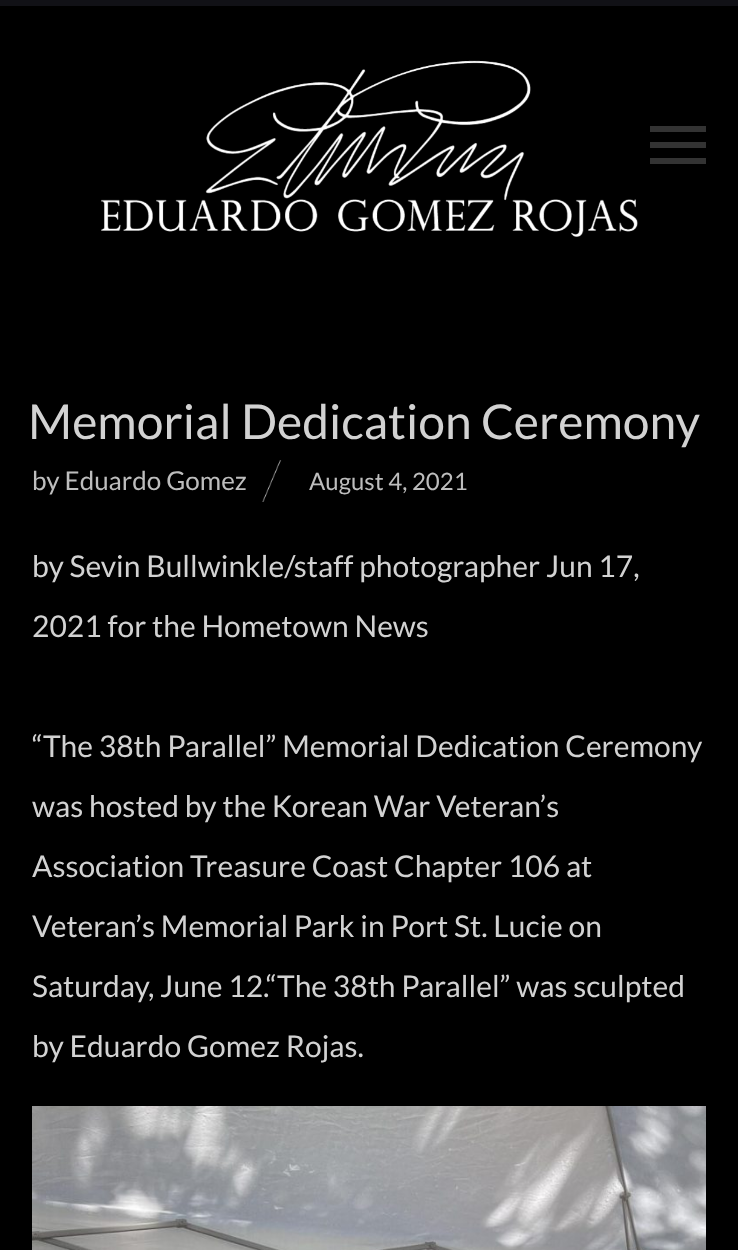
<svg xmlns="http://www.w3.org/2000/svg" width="738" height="1250">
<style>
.a{font:48px Lato;fill:#d2d2d2}
.b{font:26px Lato;fill:#bdbdbd}
.c{font:24px Lato;fill:#bdbdbd}
.d{font:30px Lato;fill:#d2d2d2}
</style>
<rect width="100%" height="100%" fill="#000"/>
<path fill="#111116" d="M0 0h738v6H0z"/>
<image href="1.png" x="101" y="60" width="537" height="177"/>
<path fill="#333" d="M650 142h56v6H650z"/>
<path fill="#333" d="M650 126h56v6H650z"/>
<path fill="#333" d="M650 158h56v6H650z"/>
<image href="2.png" x="262" y="460" width="20" height="42"/>
<image href="3.png" x="32" y="1106" width="674" height="144"/>
<text class="a" x="28" y="439">Memorial Dedication Ceremony</text>
<text class="b" x="32" y="490">by Eduardo Gomez</text>
<text class="c" x="309" y="490">August 4, 2021</text>
<text class="d" x="32" y="577">by Sevin Bullwinkle/staff photographer Jun 17,</text>
<text class="d" x="32" y="637">2021 for the Hometown News</text>
<text class="d" x="32" y="757">“The 38th Parallel” Memorial Dedication Ceremony</text>
<text class="d" x="32" y="817">was hosted by the Korean War Veteran’s</text>
<text class="d" x="32" y="877">Association Treasure Coast Chapter 106 at</text>
<text class="d" x="32" y="937">Veteran’s Memorial Park in Port St. Lucie on</text>
<text class="d" x="32" y="997">Saturday, June 12.“The 38th Parallel” was sculpted</text>
<text class="d" x="32" y="1057">by Eduardo Gomez Rojas.</text>
</svg>
